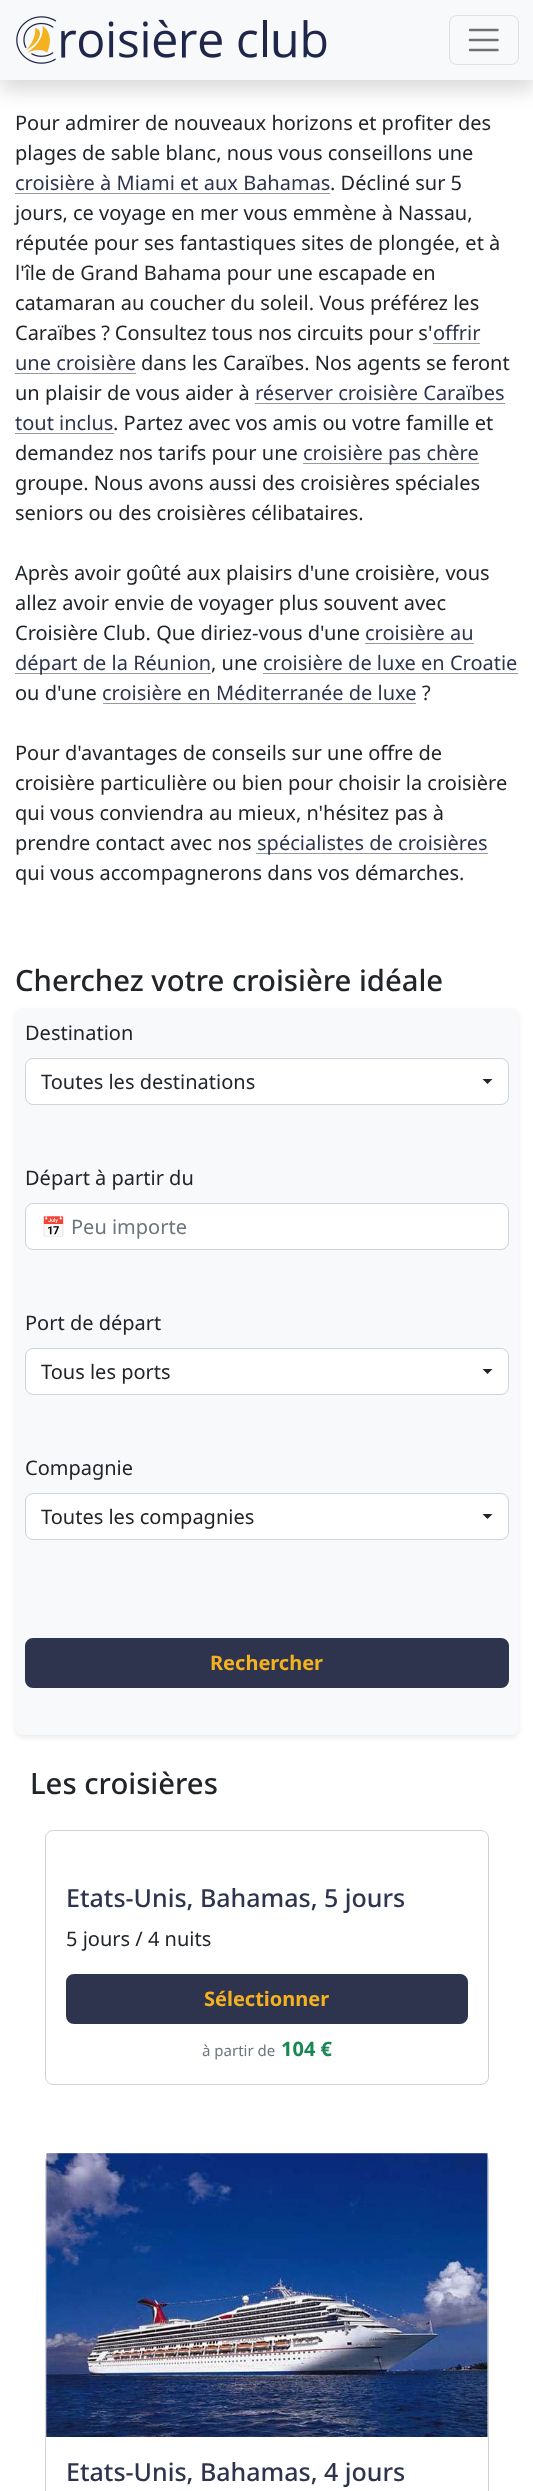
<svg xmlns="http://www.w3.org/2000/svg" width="533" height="2491">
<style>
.a{font:20px Noto Sans;fill:#212529}
.b{font:20px Noto Sans;fill:#2e344e}
.c{font:500 29.25px Noto Sans;fill:#212529}
.d{font:20px Noto Color Emoji;fill:#6c757d}
.e{font:20px Noto Sans;fill:#6c757d}
.f{font:bold 20px Noto Sans;fill:#f4b220}
.g{font:500 25px Noto Sans;fill:#2e344e}
.h{font:15px Noto Sans;fill:#6c757d}
.i{font:bold 20px Noto Sans;fill:#198754}
</style>
<rect width="100%" height="100%" fill="#fff"/>
<path fill="#00000026" filter="blur(10px)" d="M0 10h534v80H0z"/>
<path fill="#f8f9fa" d="M0 0h533v80H0z"/>
<image href="1.png" x="16" y="16" width="311" height="48"/>
<rect fill="none" stroke="#dfe0e1" x="449.5" y="15.5" width="69" height="49" rx="7.5"/>
<path fill="none" stroke="#707071" stroke-width="2.5" stroke-linecap="round" d="M470 30h27.5m-27.5 10h27.5m-27.5 10h27.5"/>
<path fill="#999" d="M15 193h315v1H15z"/>
<path fill="#999" d="M433 343h47v1H433z"/>
<path fill="#999" d="M15 373h121v1H15z"/>
<path fill="#999" d="M255 403h250v1H255z"/>
<path fill="#999" d="M15 433h99v1H15z"/>
<path fill="#999" d="M303 463h176v1H303z"/>
<path fill="#999" d="M365 643h109v1H365z"/>
<path fill="#999" d="M15 673h196v1H15z"/>
<path fill="#999" d="M263 673h255v1H263z"/>
<path fill="#999" d="M103 703h313v1H103z"/>
<path fill="#999" d="M256 853h232v1H256z"/>
<rect fill="#00000012" filter="blur(2.5px)" x="15" y="1010" width="504" height="728" rx="8"/>
<rect fill="#f8f9fa" x="15" y="1008" width="504" height="727" rx="8"/>
<rect fill="#fff" stroke="#ced4da" x="25.5" y="1058.5" width="483" height="46" rx="7.5"/>
<path fill="#212529" d="M482.5 1079h10l-5 5z"/>
<rect fill="#fff" x="26" y="1204" width="482" height="45" rx="6"/>
<rect fill="none" stroke="#ced4da" x="25.5" y="1203.5" width="483" height="46" rx="7.5"/>
<rect fill="#fff" stroke="#ced4da" x="25.5" y="1348.5" width="483" height="46" rx="7.5"/>
<path fill="#212529" d="M482.5 1369h10l-5 5z"/>
<rect fill="#fff" stroke="#ced4da" x="25.5" y="1493.5" width="483" height="46" rx="7.5"/>
<path fill="#212529" d="M482.5 1514h10l-5 5z"/>
<rect fill="#2e344e" stroke="#2e344e" stroke-width="3" x="26.5" y="1639.5" width="481" height="47" rx="6.5"/>
<rect fill="none" stroke="#d2d2d2" x="45.5" y="1830.5" width="443" height="254" rx="7.5"/>
<rect fill="#2e344e" stroke="#2e344e" stroke-width="3" x="67.5" y="1975.5" width="399" height="47" rx="6.5"/>
<rect fill="none" stroke="#d2d2d2" x="45.5" y="2153.5" width="443" height="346" rx="7.5"/>
<image href="2.png" x="46" y="2153" width="442" height="284"/>
<text class="a" x="15" y="130">Pour admirer de nouveaux horizons et profiter des</text>
<text class="a" x="15" y="160">plages de sable blanc, nous vous conseillons une</text>
<text class="b" x="15" y="190">croisière à Miami et aux Bahamas</text>
<text class="a" x="330" y="190">. Décliné sur 5</text>
<text class="a" x="15" y="220">jours, ce voyage en mer vous emmène à Nassau,</text>
<text class="a" x="15" y="250">réputée pour ses fantastiques sites de plongée, et à</text>
<text class="a" x="15" y="280">l'île de Grand Bahama pour une escapade en</text>
<text class="a" x="15" y="310">catamaran au coucher du soleil. Vous préférez les</text>
<text class="a" x="15" y="340" word-spacing="-0.25">Caraïbes ? Consultez tous nos circuits pour s'</text>
<text class="b" x="433" y="340">offrir</text>
<text class="b" x="15" y="370">une croisière</text>
<text class="a" x="141" y="370">dans les Caraïbes. Nos agents se feront</text>
<text class="a" x="15" y="400">un plaisir de vous aider à</text>
<text class="b" x="255" y="400">réserver croisière Caraïbes</text>
<text class="b" x="15" y="430">tout inclus</text>
<text class="a" x="113" y="430">. Partez avec vos amis ou votre famille et</text>
<text class="a" x="15" y="460">demandez nos tarifs pour une</text>
<text class="b" x="303" y="460">croisière pas chère</text>
<text class="a" x="15" y="490">groupe. Nous avons aussi des croisières spéciales</text>
<text class="a" x="15" y="520">seniors ou des croisières célibataires.</text>
<text class="a" x="15" y="580">Après avoir goûté aux plaisirs d'une croisière, vous</text>
<text class="a" x="15" y="610">allez avoir envie de voyager plus souvent avec</text>
<text class="a" x="15" y="640">Croisière Club. Que diriez-vous d'une</text>
<text class="b" x="365" y="640">croisière au</text>
<text class="b" x="15" y="670">départ de la Réunion</text>
<text class="a" x="211" y="670">, une</text>
<text class="b" x="263" y="670">croisière de luxe en Croatie</text>
<text class="a" x="15" y="700">ou d'une</text>
<text class="b" x="102" y="700">croisière en Méditerranée de luxe</text>
<text class="a" x="422" y="700">?</text>
<text class="a" x="15" y="760">Pour d'avantages de conseils sur une offre de</text>
<text class="a" x="15" y="790">croisière particulière ou bien pour choisir la croisière</text>
<text class="a" x="15" y="820">qui vous conviendra au mieux, n'hésitez pas à</text>
<text class="a" x="15" y="850">prendre contact avec nos</text>
<text class="b" x="257" y="850">spécialistes de croisières</text>
<text class="a" x="15" y="880">qui vous accompagnerons dans vos démarches.</text>
<text class="c" x="15" y="991">Cherchez votre croisière idéale</text>
<text class="a" x="25" y="1040">Destination</text>
<text class="a" x="41" y="1089">Toutes les destinations</text>
<text class="a" x="25" y="1185">Départ à partir du</text>
<text class="d" x="41" y="1234">📅</text>
<text class="e" x="71" y="1234">Peu importe</text>
<text class="a" x="25" y="1330">Port de départ</text>
<text class="a" x="41" y="1379">Tous les ports</text>
<text class="a" x="25" y="1475">Compagnie</text>
<text class="a" x="41" y="1524">Toutes les compagnies</text>
<text class="f" x="210" y="1670">Rechercher</text>
<text class="c" x="30" y="1794">Les croisières</text>
<text class="g" x="66" y="1907">Etats-Unis, Bahamas, 5 jours</text>
<text class="a" x="66" y="1946">5 jours / 4 nuits</text>
<text class="f" x="204" y="2006">Sélectionner</text>
<text class="h" x="202" y="2056">à partir de</text>
<text class="i" x="281" y="2056">104 €</text>
<text class="g" x="66" y="2481">Etats-Unis, Bahamas, 4 jours</text>
</svg>
